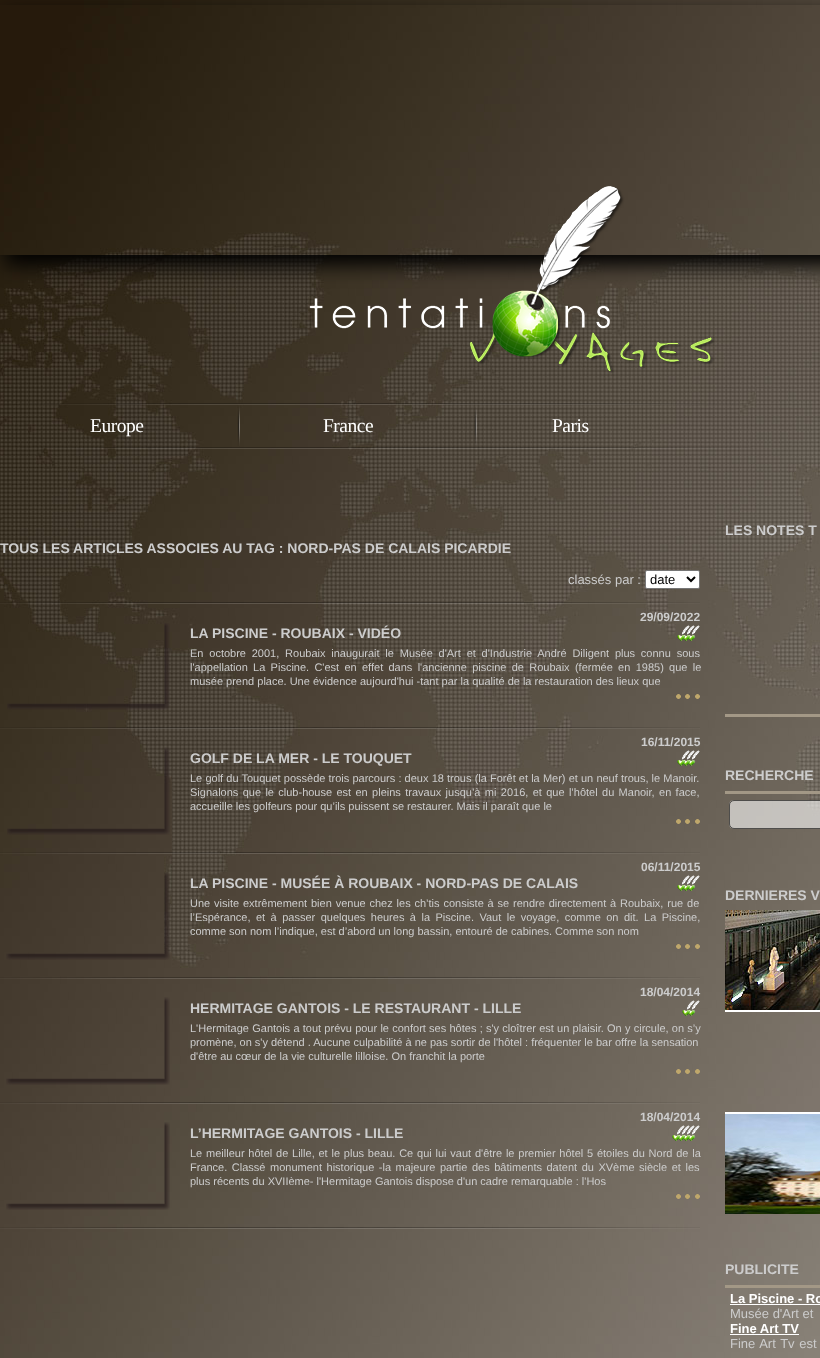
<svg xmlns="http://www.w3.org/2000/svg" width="820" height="1358">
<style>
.a{font:19.5px Liberation Serif;letter-spacing:-0.5px;fill:#fff}
.b{font:bold 14px Liberation Sans;fill:#ccc}
.c{font:13px Liberation Sans;fill:#ccc}
.d{font:13px Liberation Sans;fill:#000}
.e{font:bold 12px Liberation Sans;fill:#ccc}
.f{font:11px Liberation Sans;fill:#ccc}
.g{font:bold 13px Liberation Sans;fill:#fff}
</style>
<defs>
<clipPath id="clip1"><path d="M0 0h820v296h-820zm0 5h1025v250h-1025z" clip-rule="evenodd"/></clipPath>
</defs>
<rect width="100%" height="100%" fill="#fff"/>
<image href="1.png" x="0" y="0" width="820" height="1358"/>
<g clip-path="url(#clip1)">
<path fill="#000" filter="blur(10px)" d="M5 15h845v250H5z"/>
</g>
<image href="2.png" x="309" y="186" width="406" height="187"/>
<image href="3.png" x="20" y="403" width="730" height="46"/>
<rect fill="#fff" stroke="#767676" x="645.5" y="570.5" width="54" height="18" rx="1.5"/>
<path fill="none" stroke="#000" stroke-width="2" d="M687 577l4 4l4-4"/>
<image href="4.png" x="0" y="602" width="700" height="2"/>
<image href="5.png" x="7" y="623" width="163" height="87"/>
<image href="8.png" x="687" y="625" width="13" height="16"/>
<image href="7.png" x="682" y="625" width="13" height="16"/>
<image href="6.png" x="677" y="625" width="13" height="16"/>
<image href="9.png" x="676" y="694" width="24" height="5"/>
<image href="10.png" x="0" y="727" width="700" height="2"/>
<image href="11.png" x="7" y="747" width="163" height="88"/>
<image href="14.png" x="687" y="750" width="13" height="16"/>
<image href="13.png" x="682" y="750" width="13" height="16"/>
<image href="12.png" x="677" y="750" width="13" height="16"/>
<image href="15.png" x="676" y="819" width="24" height="5"/>
<image href="16.png" x="0" y="852" width="700" height="2"/>
<image href="17.png" x="6" y="872" width="164" height="88"/>
<image href="20.png" x="687" y="875" width="13" height="16"/>
<image href="19.png" x="682" y="875" width="13" height="16"/>
<image href="18.png" x="677" y="875" width="13" height="16"/>
<image href="21.png" x="676" y="944" width="24" height="5"/>
<image href="22.png" x="0" y="977" width="700" height="2"/>
<image href="23.png" x="6" y="997" width="164" height="88"/>
<image href="25.png" x="687" y="1000" width="13" height="16"/>
<image href="24.png" x="682" y="1000" width="13" height="16"/>
<image href="26.png" x="676" y="1069" width="24" height="5"/>
<image href="27.png" x="0" y="1102" width="700" height="2"/>
<image href="28.png" x="6" y="1122" width="164" height="88"/>
<image href="32.png" x="687" y="1125" width="13" height="16"/>
<image href="31.png" x="682" y="1125" width="13" height="16"/>
<image href="30.png" x="677" y="1125" width="13" height="16"/>
<image href="29.png" x="672" y="1125" width="13" height="16"/>
<image href="33.png" x="676" y="1194" width="24" height="5"/>
<image href="34.png" x="0" y="1227" width="700" height="2"/>
<path fill="#a39886" d="M725 714h95v3H725z"/>
<path fill="#a39886" d="M725 791h95v3H725z"/>
<rect fill="#ffffff99" x="729" y="800" width="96" height="29" rx="5"/>
<rect fill="none" stroke="#00000099" x="729.5" y="800.5" width="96" height="28" rx="4.5"/>
<image href="35.png" x="725" y="910" width="95" height="100"/>
<path fill="#fff" d="M725 1010h95v2H725z"/>
<path fill="#fff" d="M725 1112h95v2H725z"/>
<image href="36.png" x="725" y="1114" width="95" height="100"/>
<path fill="#a39886" d="M725 1285h95v3H725z"/>
<path fill="#fff" d="M730 1304h90v1H730z"/>
<path fill="#fff" d="M730 1334h69v1H730z"/>
<text class="a" x="90" y="432">Europe</text>
<text class="a" x="323" y="432">France</text>
<text class="a" x="552" y="432">Paris</text>
<text class="b" x="0" y="553">TOUS LES ARTICLES ASSOCIES AU TAG : NORD-PAS DE CALAIS PICARDIE</text>
<text class="c" x="568" y="584">classés par :</text>
<text class="d" x="650" y="584">date</text>
<text class="e" x="640" y="621">29/09/2022</text>
<text class="b" x="190" y="638">LA PISCINE - ROUBAIX - VIDÉO</text>
<text class="f" x="190" y="657" word-spacing="2.75">En octobre 2001, Roubaix inaugurait le Musée d'Art et d'Industrie André Diligent plus connu sous</text>
<text class="f" x="190" y="671" word-spacing="2.25">l'appellation La Piscine. C'est en effet dans l'ancienne piscine de Roubaix (fermée en 1985) que le</text>
<text class="f" x="190" y="685">musée prend place. Une évidence aujourd'hui -tant par la qualité de la restauration des lieux que</text>
<text class="e" x="641" y="746">16/11/2015</text>
<text class="b" x="190" y="763">GOLF DE LA MER - LE TOUQUET</text>
<text class="f" x="190" y="782" word-spacing="0.1">Le golf du Touquet possède trois parcours : deux 18 trous (la Forêt et la Mer) et un neuf trous, le Manoir.</text>
<text class="f" x="190" y="796" word-spacing="1.3">Signalons que le club-house est en pleins travaux jusqu’à mi 2016, et que l’hôtel du Manoir, en face,</text>
<text class="f" x="190" y="810">accueille les golfeurs pour qu’ils puissent se restaurer. Mais il paraît que le</text>
<text class="e" x="641" y="871">06/11/2015</text>
<text class="b" x="190" y="888">LA PISCINE - MUSÉE À ROUBAIX - NORD-PAS DE CALAIS</text>
<text class="f" x="190" y="907" word-spacing="0.8">Une visite extrêmement bien venue chez les ch’tis consiste à se rendre directement à Roubaix, rue de</text>
<text class="f" x="190" y="921" word-spacing="2.4">l’Espérance, et à passer quelques heures à la Piscine. Vaut le voyage, comme on dit. La Piscine,</text>
<text class="f" x="190" y="935">comme son nom l’indique, est d’abord un long bassin, entouré de cabines. Comme son nom</text>
<text class="e" x="640" y="996">18/04/2014</text>
<text class="b" x="190" y="1013">HERMITAGE GANTOIS - LE RESTAURANT - LILLE</text>
<text class="f" x="190" y="1032" word-spacing="0.2">L'Hermitage Gantois a tout prévu pour le confort ses hôtes ; s'y cloîtrer est un plaisir. On y circule, on s’y</text>
<text class="f" x="190" y="1046">promène, on s'y détend . Aucune culpabilité à ne pas sortir de l'hôtel : fréquenter le bar offre la sensation</text>
<text class="f" x="190" y="1060">d'être au cœur de la vie culturelle lilloise. On franchit la porte</text>
<text class="e" x="640" y="1121">18/04/2014</text>
<text class="b" x="190" y="1138">L’HERMITAGE GANTOIS - LILLE</text>
<text class="f" x="190" y="1157" word-spacing="0.75">Le meilleur hôtel de Lille, et le plus beau. Ce qui lui vaut d'être le premier hôtel 5 étoiles du Nord de la</text>
<text class="f" x="190" y="1171" word-spacing="1.5">France. Classé monument historique -la majeure partie des bâtiments datent du XVème siècle et les</text>
<text class="f" x="190" y="1185">plus récents du XVIIème- l'Hermitage Gantois dispose d'un cadre remarquable : l'Hos</text>
<text class="b" x="725" y="535">LES NOTES T</text>
<text class="b" x="725" y="780">RECHERCHE</text>
<text class="b" x="725" y="900">DERNIERES V</text>
<text class="b" x="725" y="1274">PUBLICITE</text>
<text class="g" x="730" y="1303">La Piscine - Ro</text>
<text class="c" x="730" y="1318">Musée d'Art et</text>
<text class="g" x="730" y="1333">Fine Art TV</text>
<text class="c" x="730" y="1348" word-spacing="1">Fine Art Tv est</text>
</svg>
